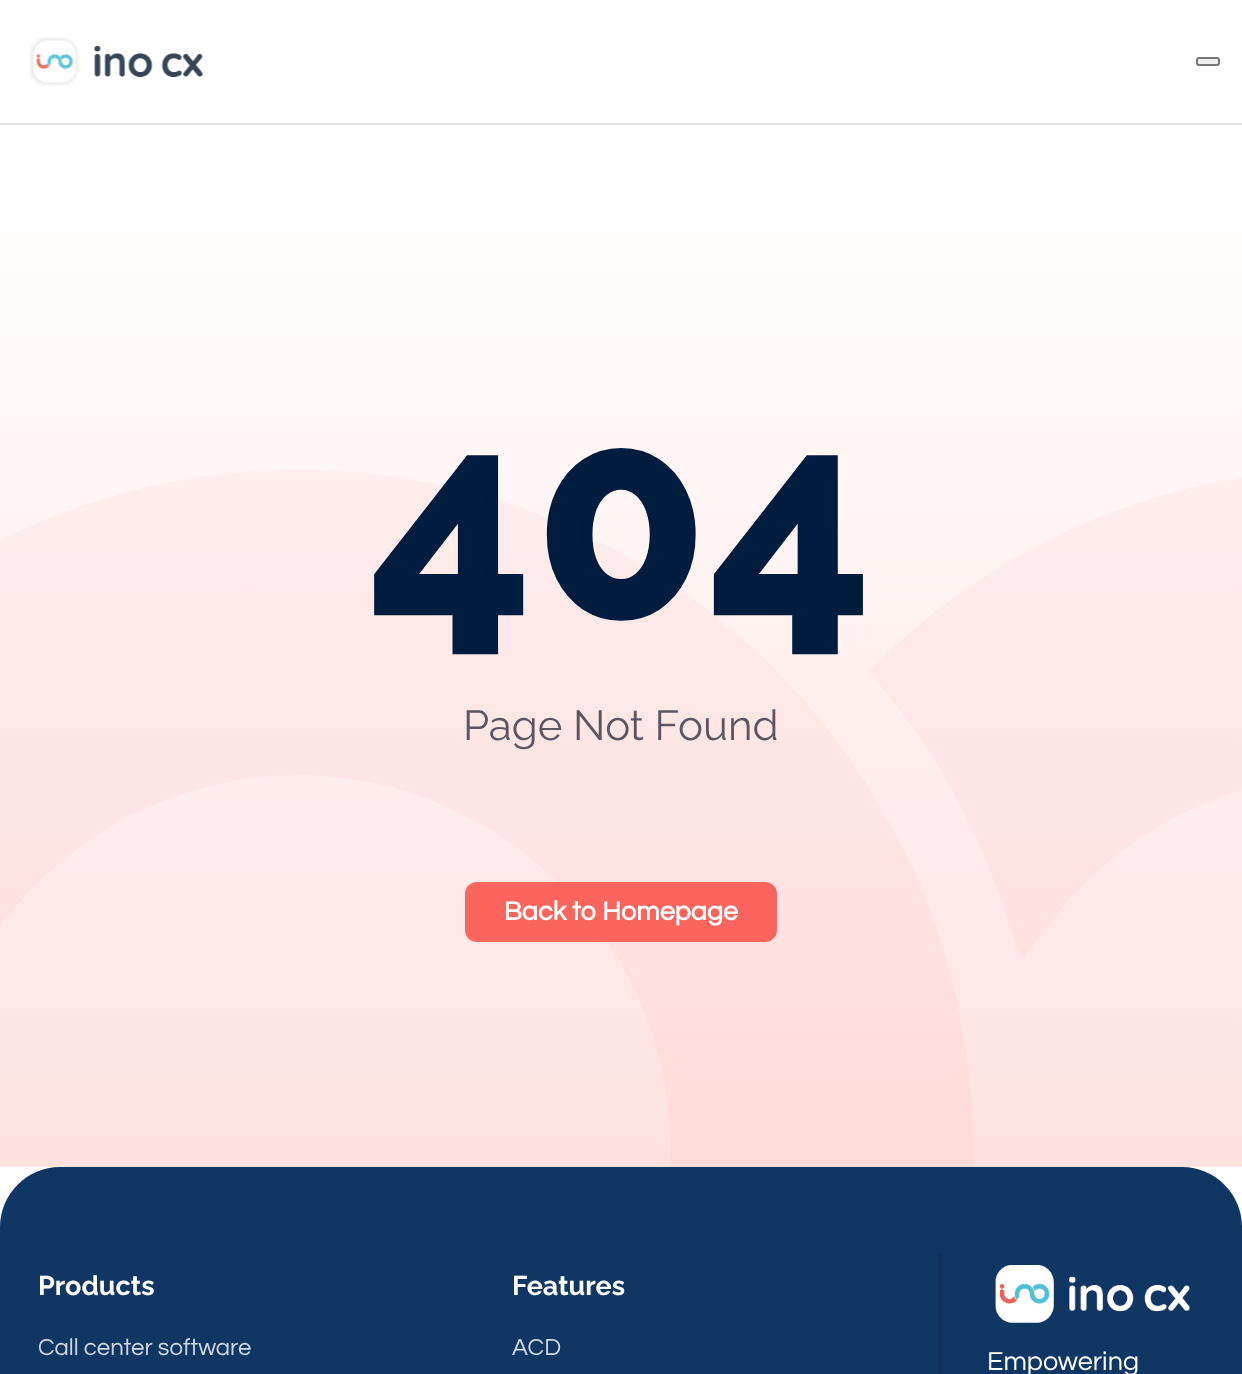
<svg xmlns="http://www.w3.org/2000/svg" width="1242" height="1374">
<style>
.a{font:800 285px Raleway;fill:#001d40}
.b{font:42px Raleway;fill:#585763}
.c{font:bold 27px Questrial;fill:#fff}
.d{font:bold 27px Raleway;fill:#fff}
.e{font:24px Questrial;fill:#cfd7e0}
.f{font:27px Questrial;fill:#fff}
</style>
<defs>
<linearGradient id="g1" gradientUnits="userSpaceOnUse" x1="621" y1="1167" x2="621" y2="150"><stop offset="0" stop-color="#ffe2e0"/><stop offset="1" stop-color="#fff"/></linearGradient>
</defs>
<rect width="100%" height="100%" fill="#fff"/>
<image href="1.png" x="29" y="37" width="174" height="49"/>
<rect fill="#efefef" stroke="#767676" stroke-width="2" x="1197" y="58" width="22" height="7" rx="2"/>
<path fill="#e3e3e3" d="M0 123h1242v2H0z"/>
<path fill="url(#g1)" d="M0 232h1242v935H0z"/>
<image href="2.png" x="0" y="470" width="1242" height="697"/>
<rect fill="#fc655d" x="465" y="882" width="312" height="60" rx="12"/>
<path fill="#103663" d="M60 1167h1122c33 0 60 27 60 60v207h-1242v-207c0-33 27-60 60-60z"/>
<path fill="#0e3159" d="M938 1254h5v120H938z"/>
<image href="3.png" x="995" y="1265" width="195" height="58"/>
<text class="a" x="369" y="618">404</text>
<text class="b" x="463" y="740">Page Not Found</text>
<text class="c" x="504" y="920">Back to Homepage</text>
<text class="d" x="38" y="1295">Products</text>
<text class="e" x="38" y="1355">Call center software</text>
<text class="d" x="512" y="1295">Features</text>
<text class="e" x="512" y="1355">ACD</text>
<text class="f" x="987" y="1370">Empowering</text>
</svg>
